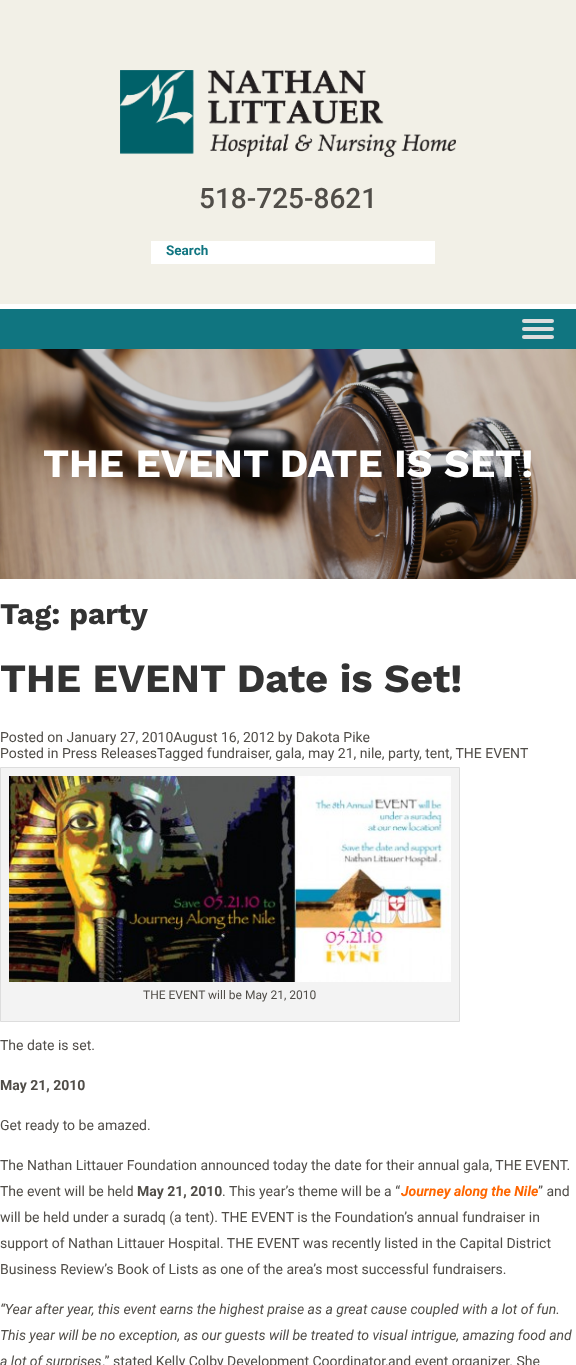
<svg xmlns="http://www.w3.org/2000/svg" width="576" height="1365">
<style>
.a{font:500 28px Roboto;fill:#504d48}
.b{font:bold 13.5px Roboto;fill:#107580}
.c{font:bold 40px Work Sans;fill:#fff}
.d{font:bold 30px Work Sans;fill:#333}
.e{font:bold 40px Work Sans;fill:#333}
.f{font:14px Roboto;fill:#504d48}
.g{font:12px Roboto;fill:#504d48}
.h{font:bold 14px Roboto;fill:#504d48}
.i{font:italic bold 14px Roboto;fill:#f60}
.j{font:italic 14px Roboto;fill:#504d48}
</style>
<rect width="100%" height="100%" fill="#fff"/>
<path fill="#f2f0e7" d="M0 0h576v304H0z"/>
<image href="1.png" x="120" y="70" width="336" height="87"/>
<path fill="#fff" d="M151 241h284v23H151z"/>
<path fill="#107580" d="M0 309h576v40H0z"/>
<rect fill="#ddd" x="522" y="319" width="32" height="4" rx="2"/>
<rect fill="#ddd" x="522" y="327" width="32" height="4" rx="2"/>
<rect fill="#ddd" x="522" y="335" width="32" height="4" rx="2"/>
<image href="2.png" x="0" y="349" width="576" height="230"/>
<path fill="#f3f3f3" stroke="#ddd" d="M0.5 767.5h459v254H0.5z"/>
<image href="3.png" x="9" y="776" width="442" height="206"/>
<text class="a" x="199" y="208">518-725-8621</text>
<text class="b" x="166" y="255">Search</text>
<text class="c" x="43" y="477">THE EVENT DATE IS SET!</text>
<text class="d" x="0" y="624">Tag: party</text>
<text class="e" x="0" y="692">THE EVENT Date is Set!</text>
<text class="f" x="0" y="742">Posted on January 27, 2010August 16, 2012 by Dakota Pike</text>
<text class="f" x="0" y="758">Posted in Press ReleasesTagged fundraiser</text>
<text class="f" x="269" y="758">, gala, may 21, nile, party</text>
<text class="f" x="419" y="758">, tent, THE EVENT</text>
<text class="g" x="143" y="999">THE EVENT will be May 21, 2010</text>
<text class="f" x="0" y="1050">The date is set.</text>
<text class="h" x="0" y="1090">May 21, 2010</text>
<text class="f" x="0" y="1130">Get ready to be amazed.</text>
<text class="f" x="0" y="1170">The Nathan Littauer Foundation announced today the date for their annual gala, THE EVENT.</text>
<text class="f" x="0" y="1196">The event will be held</text>
<text class="h" x="137" y="1196">May 21, 2010</text>
<text class="f" x="222" y="1196">. This year’s theme will be a “</text>
<text class="i" x="401" y="1196">Journey along the Nile</text>
<text class="f" x="538" y="1196">” and</text>
<text class="f" x="0" y="1222">will be held under a suradq (a tent). THE EVENT is the Foundation’s annual fundraiser in</text>
<text class="f" x="0" y="1248">support of Nathan Littauer Hospital. THE EVENT was recently listed in the Capital District</text>
<text class="f" x="0" y="1274">Business Review’s Book of Lists as one of the area’s most successful fundraisers.</text>
<text class="j" x="0" y="1314">“Year after year, this event earns the highest praise as a great cause coupled with a lot of fun.</text>
<text class="j" x="0" y="1340">This year will be no exception, as our guests will be treated to visual intrigue, amazing food and</text>
<text class="j" x="0" y="1366">a lot of surprises</text>
<text class="f" x="102" y="1366">.” stated Kelly Colby Development Coordinator,and event organizer. She</text>
</svg>
